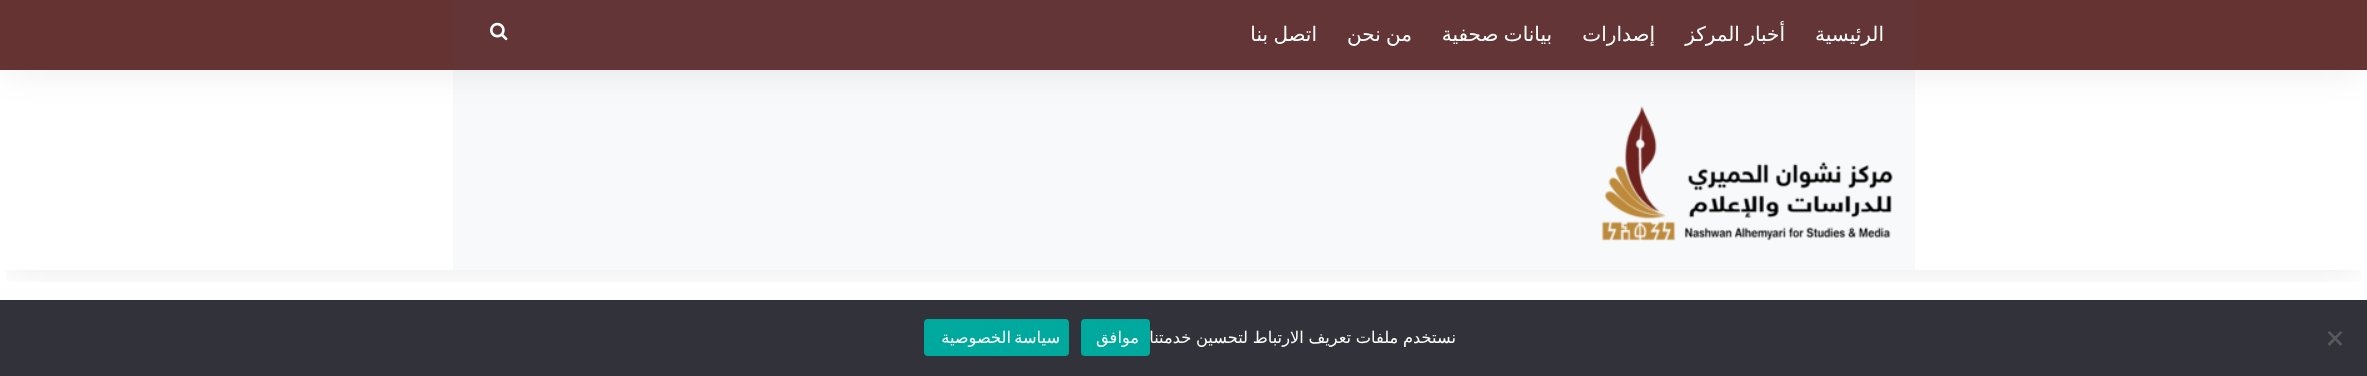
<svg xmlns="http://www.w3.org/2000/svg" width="2367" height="376">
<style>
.a{font:20px DejaVu Sans;direction:rtl;fill:#fff}
.b{font:16.25px DejaVu Sans;direction:rtl;fill:#fff}
.c{font:16.25px DejaVu Sans;letter-spacing:0.25px;direction:rtl;fill:#fff}
</style>
<defs>
<clipPath id="clip1"><path d="M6 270h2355v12H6z"/></clipPath>
</defs>
<rect width="100%" height="100%" fill="#fff"/>
<g clip-path="url(#clip1)">
<path fill="#0000001a" filter="blur(19px)" d="M6 9h2355v257H6z"/>
</g>
<path fill="#0000001a" filter="blur(19px)" d="M6 9h2355v57H6z"/>
<path fill="#633" d="M0 0h2367v70H0z"/>
<path fill="#633536" d="M453 0h1462v70H453z"/>
<image href="1.png" x="490" y="22" width="18" height="19"/>
<path fill="#27657d0a" d="M453 70h1462v200H453z"/>
<image href="2.png" x="1601" y="106" width="292" height="135"/>
<path fill="#32323a" d="M0 300h2367v76H0z"/>
<path fill="#59595d" d="M2340.5 331l2 1.5l-13 13.5l-2-2z"/>
<path fill="#59595d" d="M2327.5 332.5l2-1.5l13 13l-2 2z"/>
<rect fill="#00a99d" x="1081" y="319" width="69" height="37" rx="4"/>
<rect fill="#00a99d" x="924" y="319" width="145" height="37" rx="4"/>
<text class="a" x="1884" y="41">الرئيسية</text>
<text class="a" x="1785" y="41" word-spacing="-1">أخبار المركز</text>
<text class="a" x="1655" y="41">إصدارات</text>
<text class="a" x="1552" y="41" word-spacing="-1">بيانات صحفية</text>
<text class="a" x="1412" y="41" word-spacing="-1">من نحن</text>
<text class="a" x="1317" y="41" word-spacing="-1">اتصل بنا</text>
<text class="b" x="1456" y="343" word-spacing="-0.5">نستخدم ملفات تعريف الارتباط لتحسين خدمتنا</text>
<text class="c" x="1139" y="343">موافق</text>
<text class="c" x="1060" y="343" word-spacing="-2">سياسة الخصوصية</text>
</svg>
